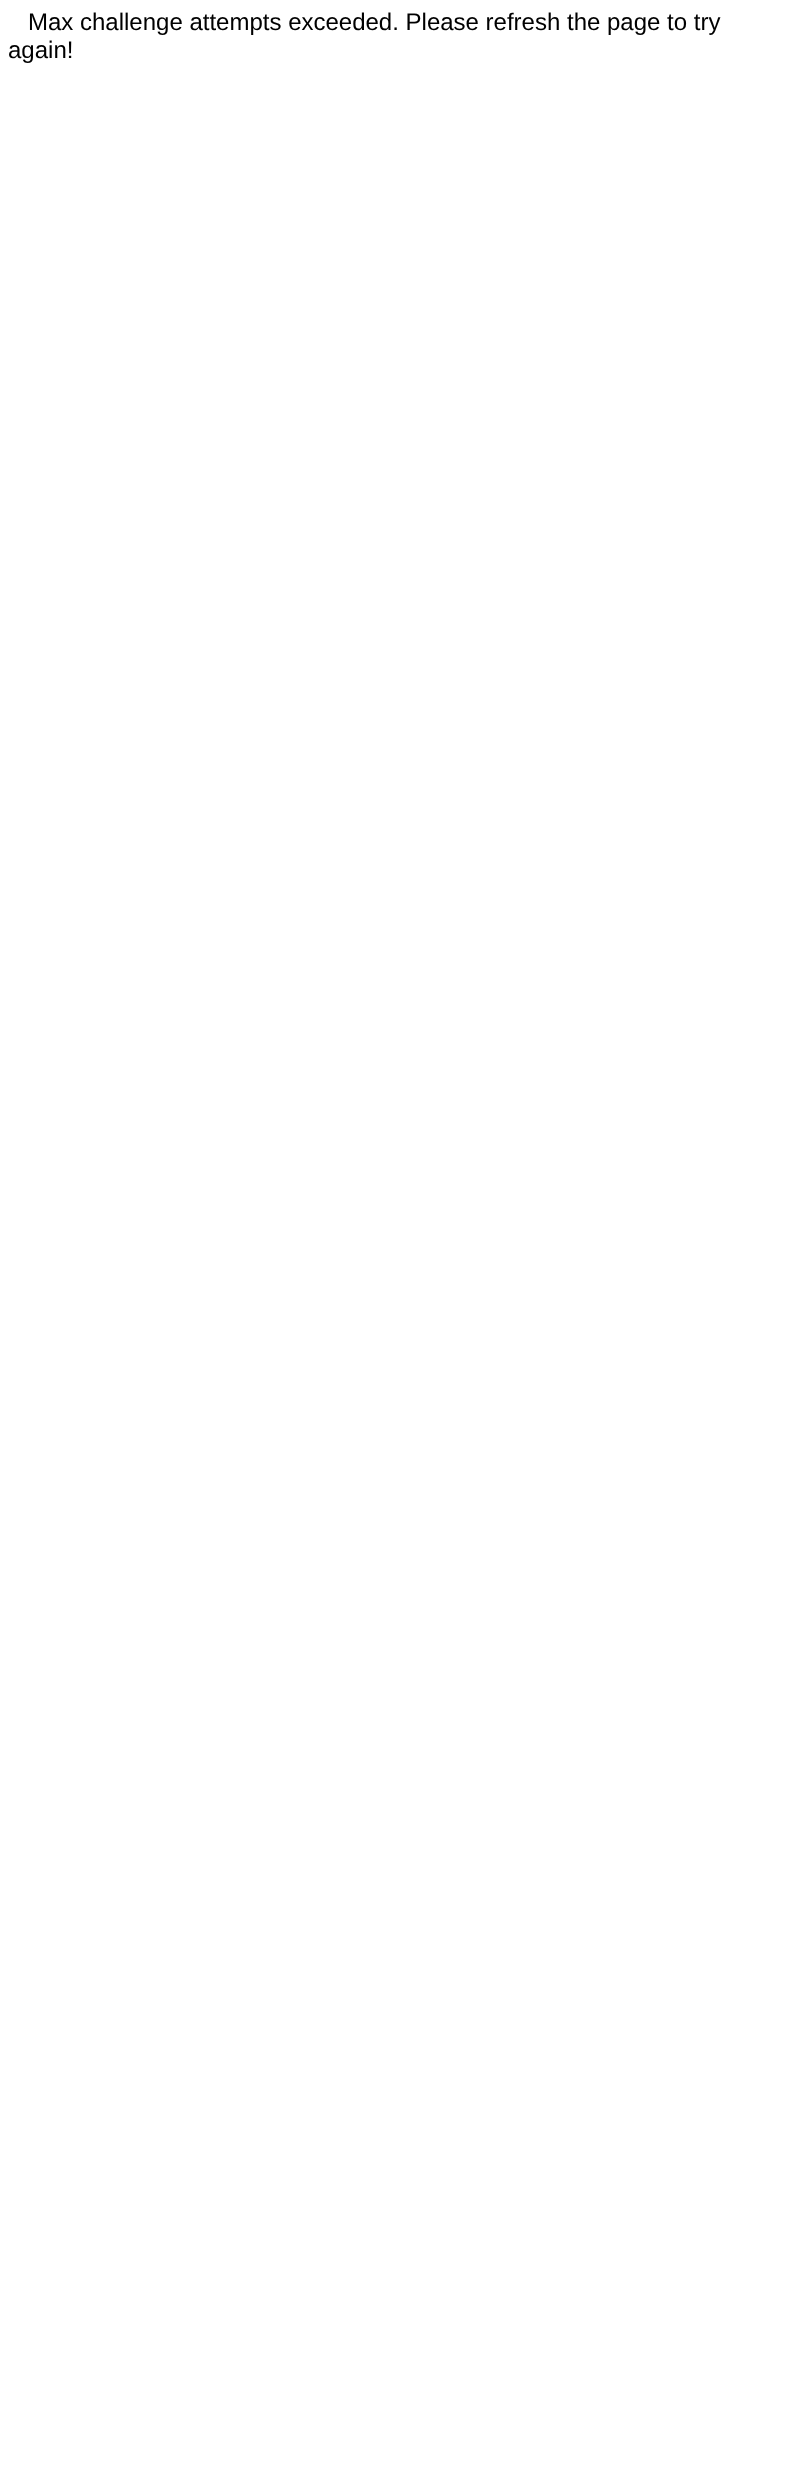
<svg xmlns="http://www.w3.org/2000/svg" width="795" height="2487">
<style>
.a{font:24px Liberation Sans;fill:#000}
</style>
<rect width="100%" height="100%" fill="#fff"/>
<text class="a" x="28" y="30">Max challenge attempts exceeded. Please refresh the page to try</text>
<text class="a" x="8" y="58">again!</text>
</svg>
